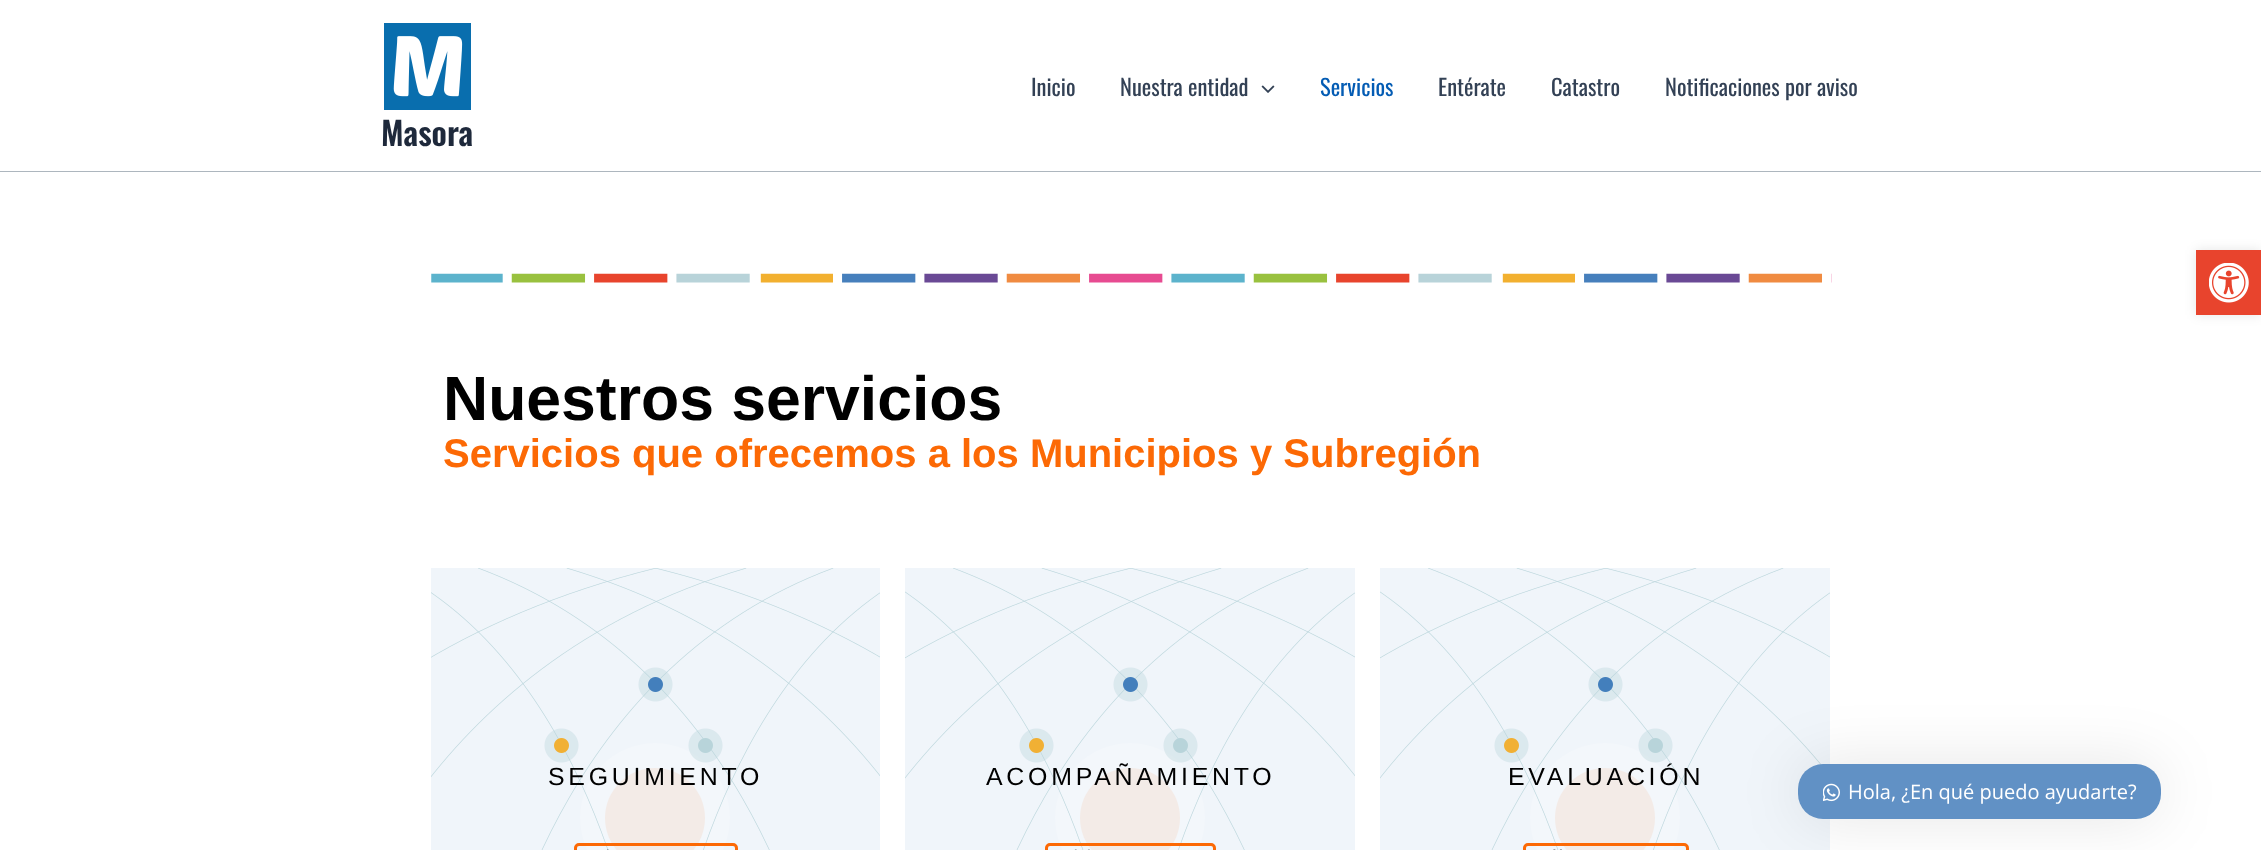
<svg xmlns="http://www.w3.org/2000/svg" width="2261" height="850">
<style>
.a{font:22.5px Oswald;fill:#334155}
.b{font:22.5px Oswald;fill:#045cb4}
.c{font:600 32.5px Oswald;fill:#1e293b}
.d{font:bold 62.5px Liberation Sans;fill:#000}
.e{font:bold 40px Liberation Sans;fill:#fc6905}
.f{font:24.9px Liberation Sans;letter-spacing:3.75px;fill:#000}
.g{font:20px Open Sans;fill:#fff}
</style>
<rect width="100%" height="100%" fill="#fff"/>
<path fill="#adb6be" d="M0 171h2261v1H0z"/>
<image href="1.png" x="1261" y="85" width="14" height="8"/>
<image href="2.png" x="384" y="23" width="87" height="87"/>
<image href="3.png" x="431" y="273" width="1401" height="10"/>
<path fill="#f0f5fa" d="M431 568h449v282H431z"/>
<circle fill="#f1e7e2" cx="655" cy="818" r="50"/>
<circle fill="#ffffff33" cx="655" cy="818" r="75"/>
<image href="4.png" x="431" y="568" width="449" height="282"/>
<rect fill="none" stroke="#fc6905" stroke-width="3" x="575.5" y="844.5" width="161" height="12" rx="3.5"/>
<image href="5.png" x="607" y="849" width="2" height="1"/>
<path fill="#f0f5fa" d="M905 568h450v282H905z"/>
<circle fill="#f1e7e2" cx="1130" cy="818" r="50"/>
<circle fill="#ffffff33" cx="1130" cy="818" r="75"/>
<image href="6.png" x="905" y="568" width="450" height="282"/>
<rect fill="none" stroke="#fc6905" stroke-width="3" x="1046.5" y="844.5" width="168" height="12" rx="3.5"/>
<image href="7.png" x="1074" y="849" width="16" height="1"/>
<path fill="#f0f5fa" d="M1380 568h450v282H1380z"/>
<circle fill="#f1e7e2" cx="1605" cy="818" r="50"/>
<circle fill="#ffffff33" cx="1605" cy="818" r="75"/>
<image href="6.png" x="1380" y="568" width="450" height="282"/>
<rect fill="none" stroke="#fc6905" stroke-width="3" x="1524.5" y="844.5" width="163" height="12" rx="3.5"/>
<image href="8.png" x="1553" y="849" width="9" height="1"/>
<path fill="#0000001a" filter="blur(6px)" d="M2196 250h65v65H2196z"/>
<path fill="#e8442d" d="M2196 250h65v65H2196z"/>
<image href="9.png" x="2209" y="263" width="40" height="40"/>
<rect fill="#0000001a" filter="blur(31px)" x="1798" y="764" width="363" height="55" rx="25"/>
<rect fill="#6191c5" x="1798" y="764" width="363" height="55" rx="25"/>
<image href="10.png" x="1823" y="783" width="17" height="19"/>
<text class="a" x="1031" y="96">Inicio</text>
<text class="a" x="1120" y="96">Nuestra entidad</text>
<text class="b" x="1320" y="96">Servicios</text>
<text class="a" x="1438" y="96">Entérate</text>
<text class="a" x="1551" y="96">Catastro</text>
<text class="a" x="1665" y="96">Notificaciones por aviso</text>
<text class="c" x="381" y="146">Masora</text>
<text class="d" x="443" y="420">Nuestros servicios</text>
<text class="e" x="443" y="467">Servicios que ofrecemos a los Municipios y Subregión</text>
<text class="f" x="548" y="785">SEGUIMIENTO</text>
<text class="f" x="986" y="785">ACOMPAÑAMIENTO</text>
<text class="f" x="1508" y="785">EVALUACIÓN</text>
<text class="g" x="1848" y="799">Hola, ¿En qué puedo ayudarte?</text>
</svg>
